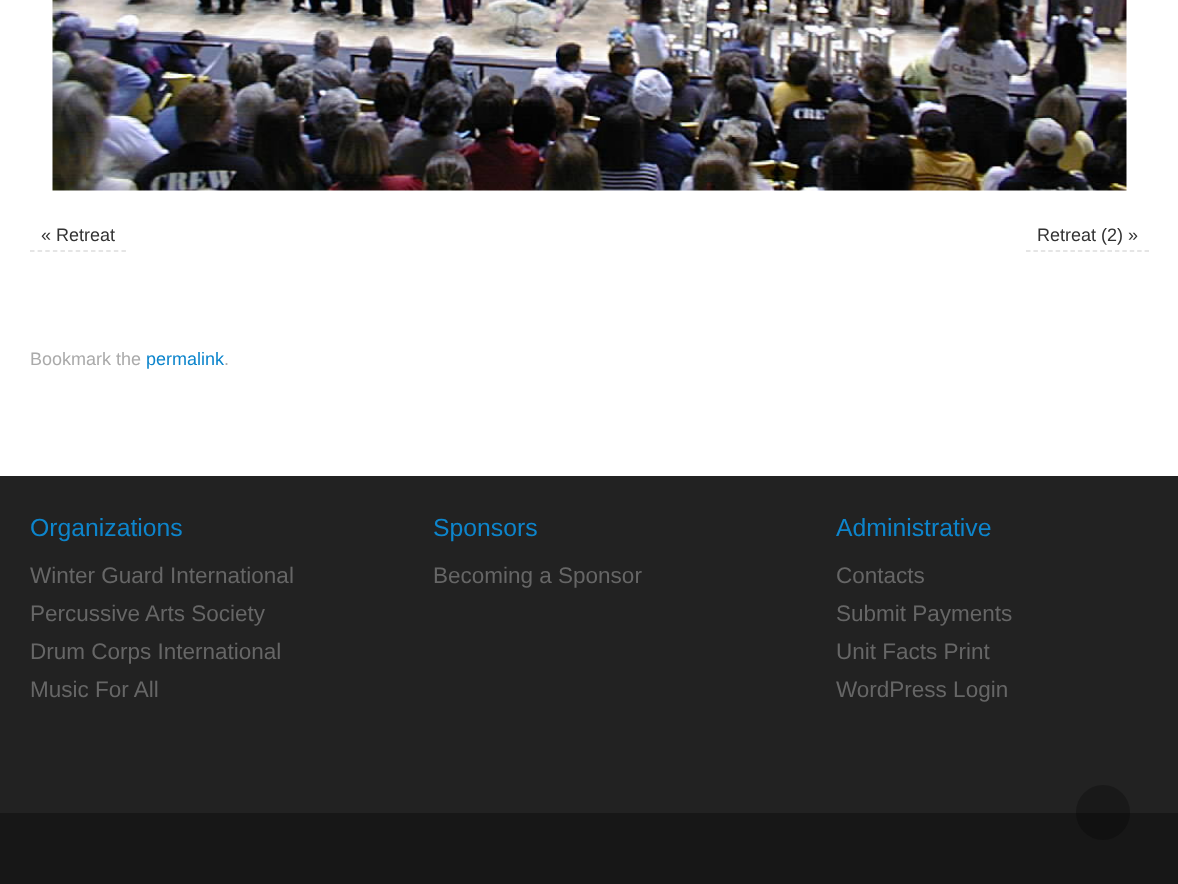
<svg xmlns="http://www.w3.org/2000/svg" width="1178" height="884">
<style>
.a{font:18px Liberation Sans;fill:#333}
.b{font:18px Liberation Sans;fill:#aaa}
.c{font:18px Liberation Sans;fill:#0d85cc}
.d{font:24.75px Liberation Sans;fill:#0d85cc}
.e{font:22.5px Liberation Sans;fill:#666}
</style>
<rect width="100%" height="100%" fill="#222"/>
<path fill="#fff" d="M0 0h1178v476H0z"/>
<image href="1.png" x="52" y="0" width="1075" height="191"/>
<path fill="none" stroke="#ddd" stroke-width="1.5" stroke-dasharray="4.5 3.12" d="M30 251h96"/>
<path fill="none" stroke="#ddd" stroke-width="1.5" stroke-dasharray="4.5 2.91" d="M1026 251h123"/>
<path fill="#171717" d="M0 813h1178v71H0z"/>
<rect fill="#00000040" x="1076" y="785" width="54" height="55" rx="27"/>
<text class="a" x="41" y="241">« Retreat</text>
<text class="a" x="1037" y="241">Retreat (2) »</text>
<text class="b" x="30" y="365">Bookmark the</text>
<text class="c" x="146" y="365">permalink</text>
<text class="b" x="224" y="365">.</text>
<text class="d" x="30" y="536">Organizations</text>
<text class="e" x="30" y="583">Winter Guard International</text>
<text class="e" x="30" y="621">Percussive Arts Society</text>
<text class="e" x="30" y="659">Drum Corps International</text>
<text class="e" x="30" y="697">Music For All</text>
<text class="d" x="433" y="536">Sponsors</text>
<text class="e" x="433" y="583">Becoming a Sponsor</text>
<text class="d" x="836" y="536">Administrative</text>
<text class="e" x="836" y="583">Contacts</text>
<text class="e" x="836" y="621">Submit Payments</text>
<text class="e" x="836" y="659">Unit Facts Print</text>
<text class="e" x="836" y="697">WordPress Login</text>
</svg>
